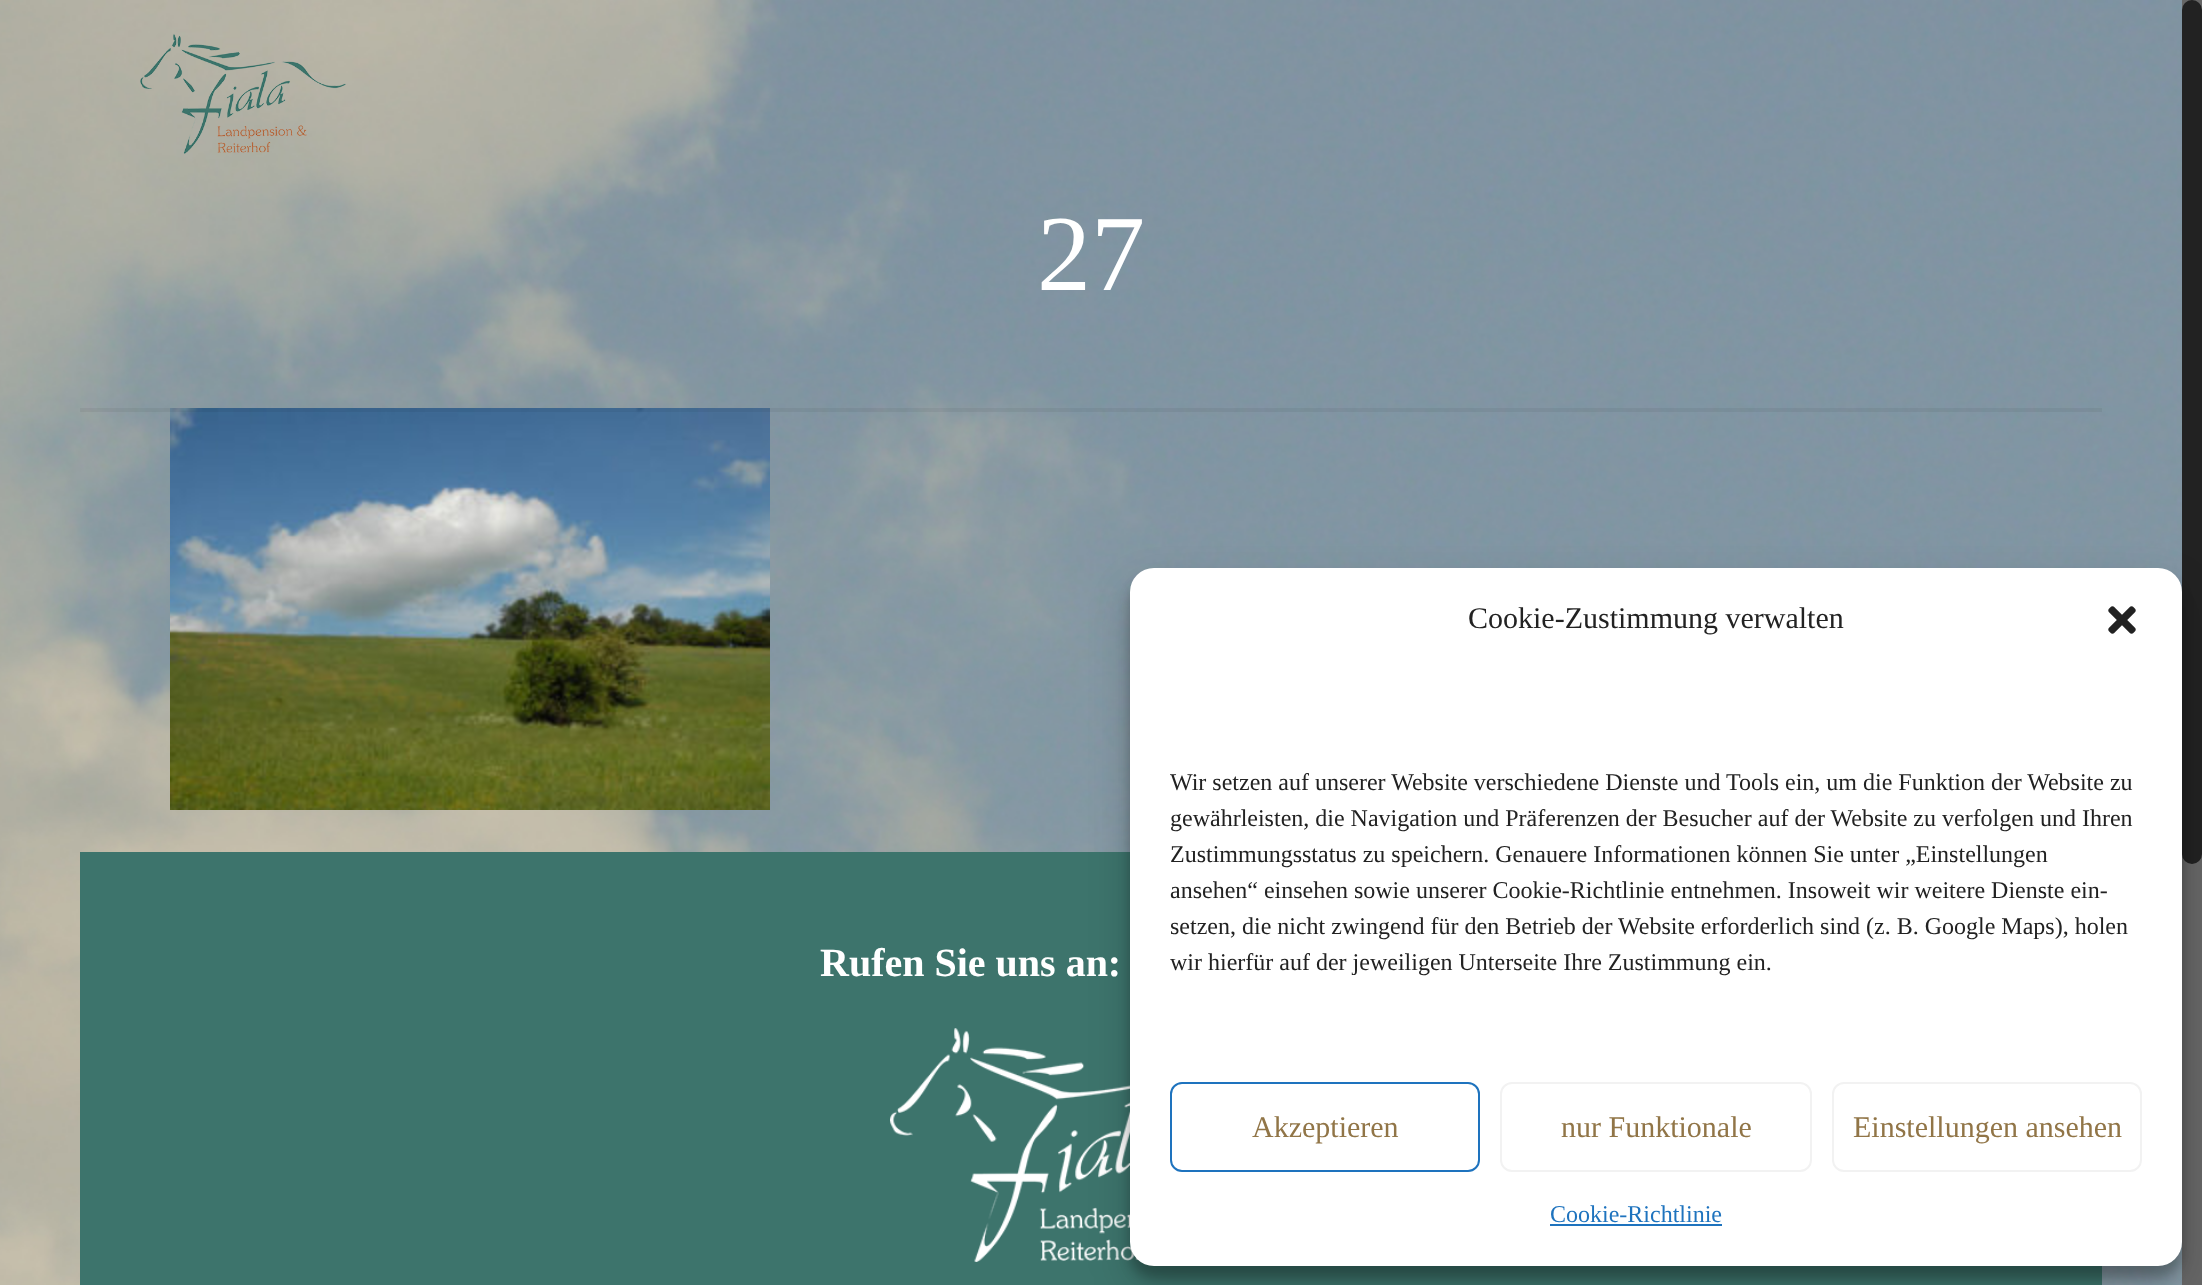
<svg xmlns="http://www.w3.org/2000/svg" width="2202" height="1285">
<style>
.a{font:108px Liberation Serif;fill:#fff}
.b{font:bold 40px Liberation Serif;fill:#fff}
.c{font:30px Liberation Serif;fill:#222}
.d{font:24px Liberation Serif;fill:#222}
.e{font:30px Liberation Serif;fill:#917547}
.f{font:24px Liberation Serif;fill:#1e73be}
</style>
<rect width="100%" height="100%" fill="#fff"/>
<image href="1.png" x="0" y="0" width="2182" height="1285"/>
<image href="2.png" x="140" y="34" width="206" height="120"/>
<image href="3.png" x="170" y="408" width="600" height="402"/>
<path fill="#0000000d" d="M80 408h2022v4H80z"/>
<path fill="#3d746c" d="M80 852h2022v433H80z"/>
<image href="4.png" x="890" y="1028" width="249" height="234"/>
<path fill="#666" d="M2182 0h20v1285H2182z"/>
<rect fill="#222" x="2182" width="20" height="864" rx="10"/>
<rect fill="#0000003b" filter="blur(6px)" x="1130" y="580" width="1052" height="698" rx="24"/>
<rect fill="#00000030" filter="blur(20px)" x="1130" y="588" width="1052" height="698" rx="24"/>
<rect fill="#fff" x="1130" y="568" width="1052" height="698" rx="24"/>
<image href="5.png" x="2108" y="606" width="28" height="28"/>
<rect fill="none" stroke="#1e73be" stroke-width="2" x="1171" y="1083" width="308" height="88" rx="11"/>
<rect fill="none" stroke="#f2f2f2" stroke-width="2" x="1501" y="1083" width="310" height="88" rx="11"/>
<rect fill="none" stroke="#f2f2f2" stroke-width="2" x="1833" y="1083" width="308" height="88" rx="11"/>
<path fill="#1e73be" d="M1550 1224h172v2H1550z"/>
<text class="a" x="1037" y="290">27</text>
<text class="b" x="820" y="976">Rufen Sie uns an:</text>
<text class="c" x="1468" y="628">Cookie-Zustimmung verwalten</text>
<text class="d" x="1170" y="790">Wir setzen auf unserer Website verschiedene Dienste und Tools ein, um die Funktion der Website zu</text>
<text class="d" x="1170" y="826">gewährleisten, die Navigation und Präferenzen der Besucher auf der Website zu verfolgen und Ihren</text>
<text class="d" x="1170" y="862">Zustimmungsstatus zu speichern. Genauere Informationen können Sie unter „Einstellungen</text>
<text class="d" x="1170" y="898">ansehen“ einsehen sowie unserer Cookie-Richtlinie entnehmen. Insoweit wir weitere Dienste ein-</text>
<text class="d" x="1170" y="934">setzen, die nicht zwingend für den Betrieb der Website erforderlich sind (z. B. Google Maps), holen</text>
<text class="d" x="1170" y="970">wir hierfür auf der jeweiligen Unterseite Ihre Zustimmung ein.</text>
<text class="e" x="1252" y="1137">Akzeptieren</text>
<text class="e" x="1561" y="1137">nur Funktionale</text>
<text class="e" x="1853" y="1137">Einstellungen ansehen</text>
<text class="f" x="1550" y="1222">Cookie-Richtlinie</text>
</svg>
